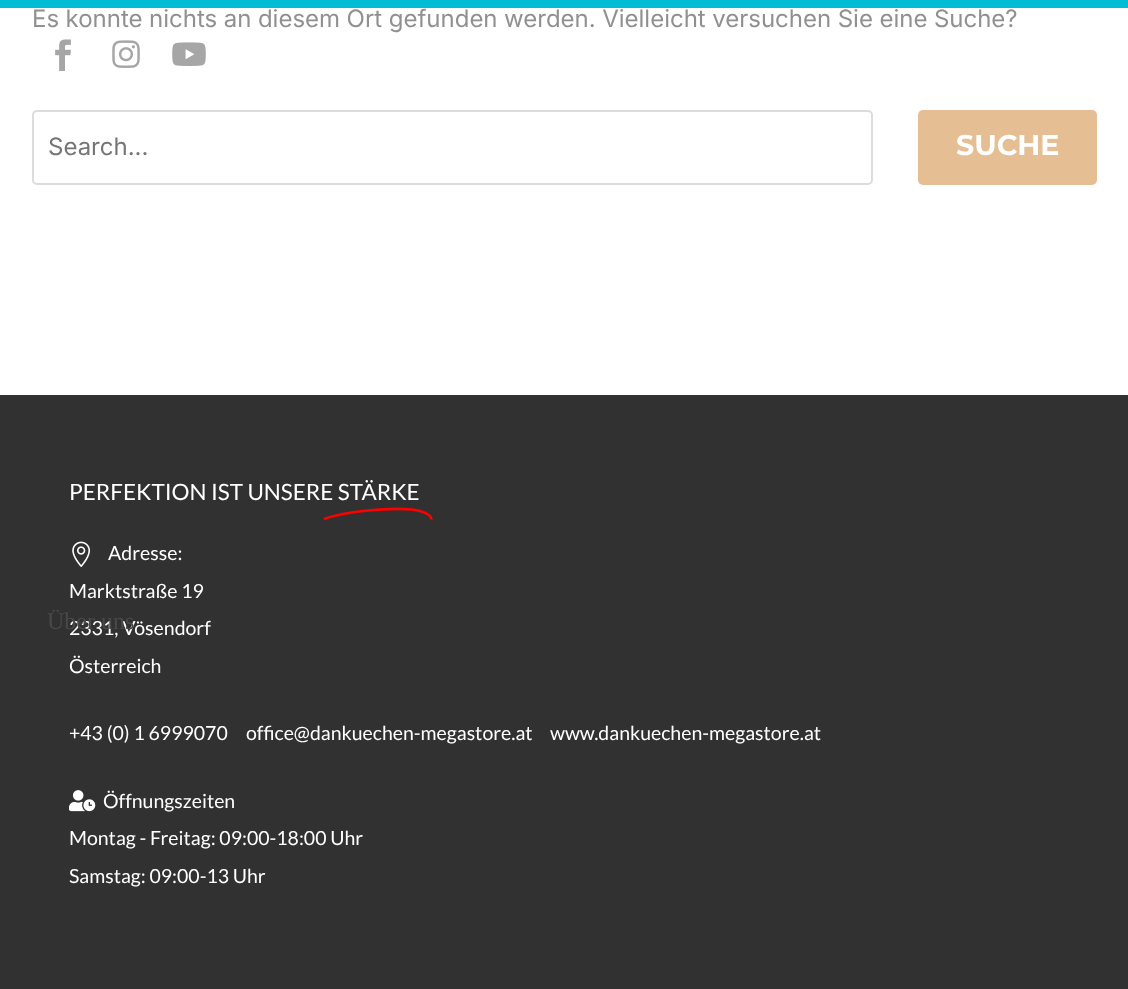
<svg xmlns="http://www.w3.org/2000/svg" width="1128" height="989">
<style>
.a{font:24px Inter;fill:#909090}
.b{font:24px Inter;fill:#757575}
.c{font:bold 28.5px Montserrat;fill:#fff}
.d{font:22.5px Lato;fill:#fff}
.e{font:19.5px Lato;fill:#fff}
.f{font:24px Liberation Serif;fill:#494949}
</style>
<rect width="100%" height="100%" fill="#fff"/>
<rect fill="none" stroke="#dcdcdc" stroke-width="2" x="33" y="111" width="839" height="73" rx="4"/>
<rect fill="#e5bf93" x="918" y="110" width="179" height="75" rx="5"/>
<path fill="#313131" d="M0 395h1128v594H0z"/>
<path fill="none" stroke="#f00" stroke-width="2.6" d="M324 519c22.5-8 65-11.5 88-9.5c9 1 19.5 4.5 19.5 10"/>
<image href="1.png" x="72" y="541" width="19" height="26"/>
<image href="2.png" x="69" y="790" width="27" height="22"/>
<path fill="#00bcd4" d="M0 0h1128v8H0z"/>
<image href="3.png" x="55" y="39" width="16" height="32"/>
<image href="4.png" x="112" y="40" width="28" height="28"/>
<image href="5.png" x="172" y="42" width="34" height="24"/>
<text class="a" x="32" y="27" word-spacing="-0.25">Es konnte nichts an diesem Ort gefunden werden. Vielleicht versuchen Sie eine Suche?</text>
<text class="b" x="48" y="155">Search...</text>
<text class="c" x="956" y="155">SUCHE</text>
<text class="d" x="69" y="500">PERFEKTION IST UNSERE STÄRKE</text>
<text class="e" x="108" y="560">Adresse:</text>
<text class="e" x="69" y="598">Marktstraße 19</text>
<text class="e" x="69" y="635">2331, Vösendorf</text>
<text class="e" x="69" y="673">Österreich</text>
<text class="e" x="69" y="740">+43 (0) 1 6999070</text>
<text class="e" x="246" y="740">office@dankuechen-megastore.at</text>
<text class="e" x="550" y="740">www.dankuechen-megastore.at</text>
<text class="e" x="103" y="808">Öffnungszeiten</text>
<text class="e" x="69" y="845">Montag - Freitag: 09:00-18:00 Uhr</text>
<text class="e" x="69" y="883">Samstag: 09:00-13 Uhr</text>
<text class="f" x="47" y="629">Über uns</text>
</svg>
